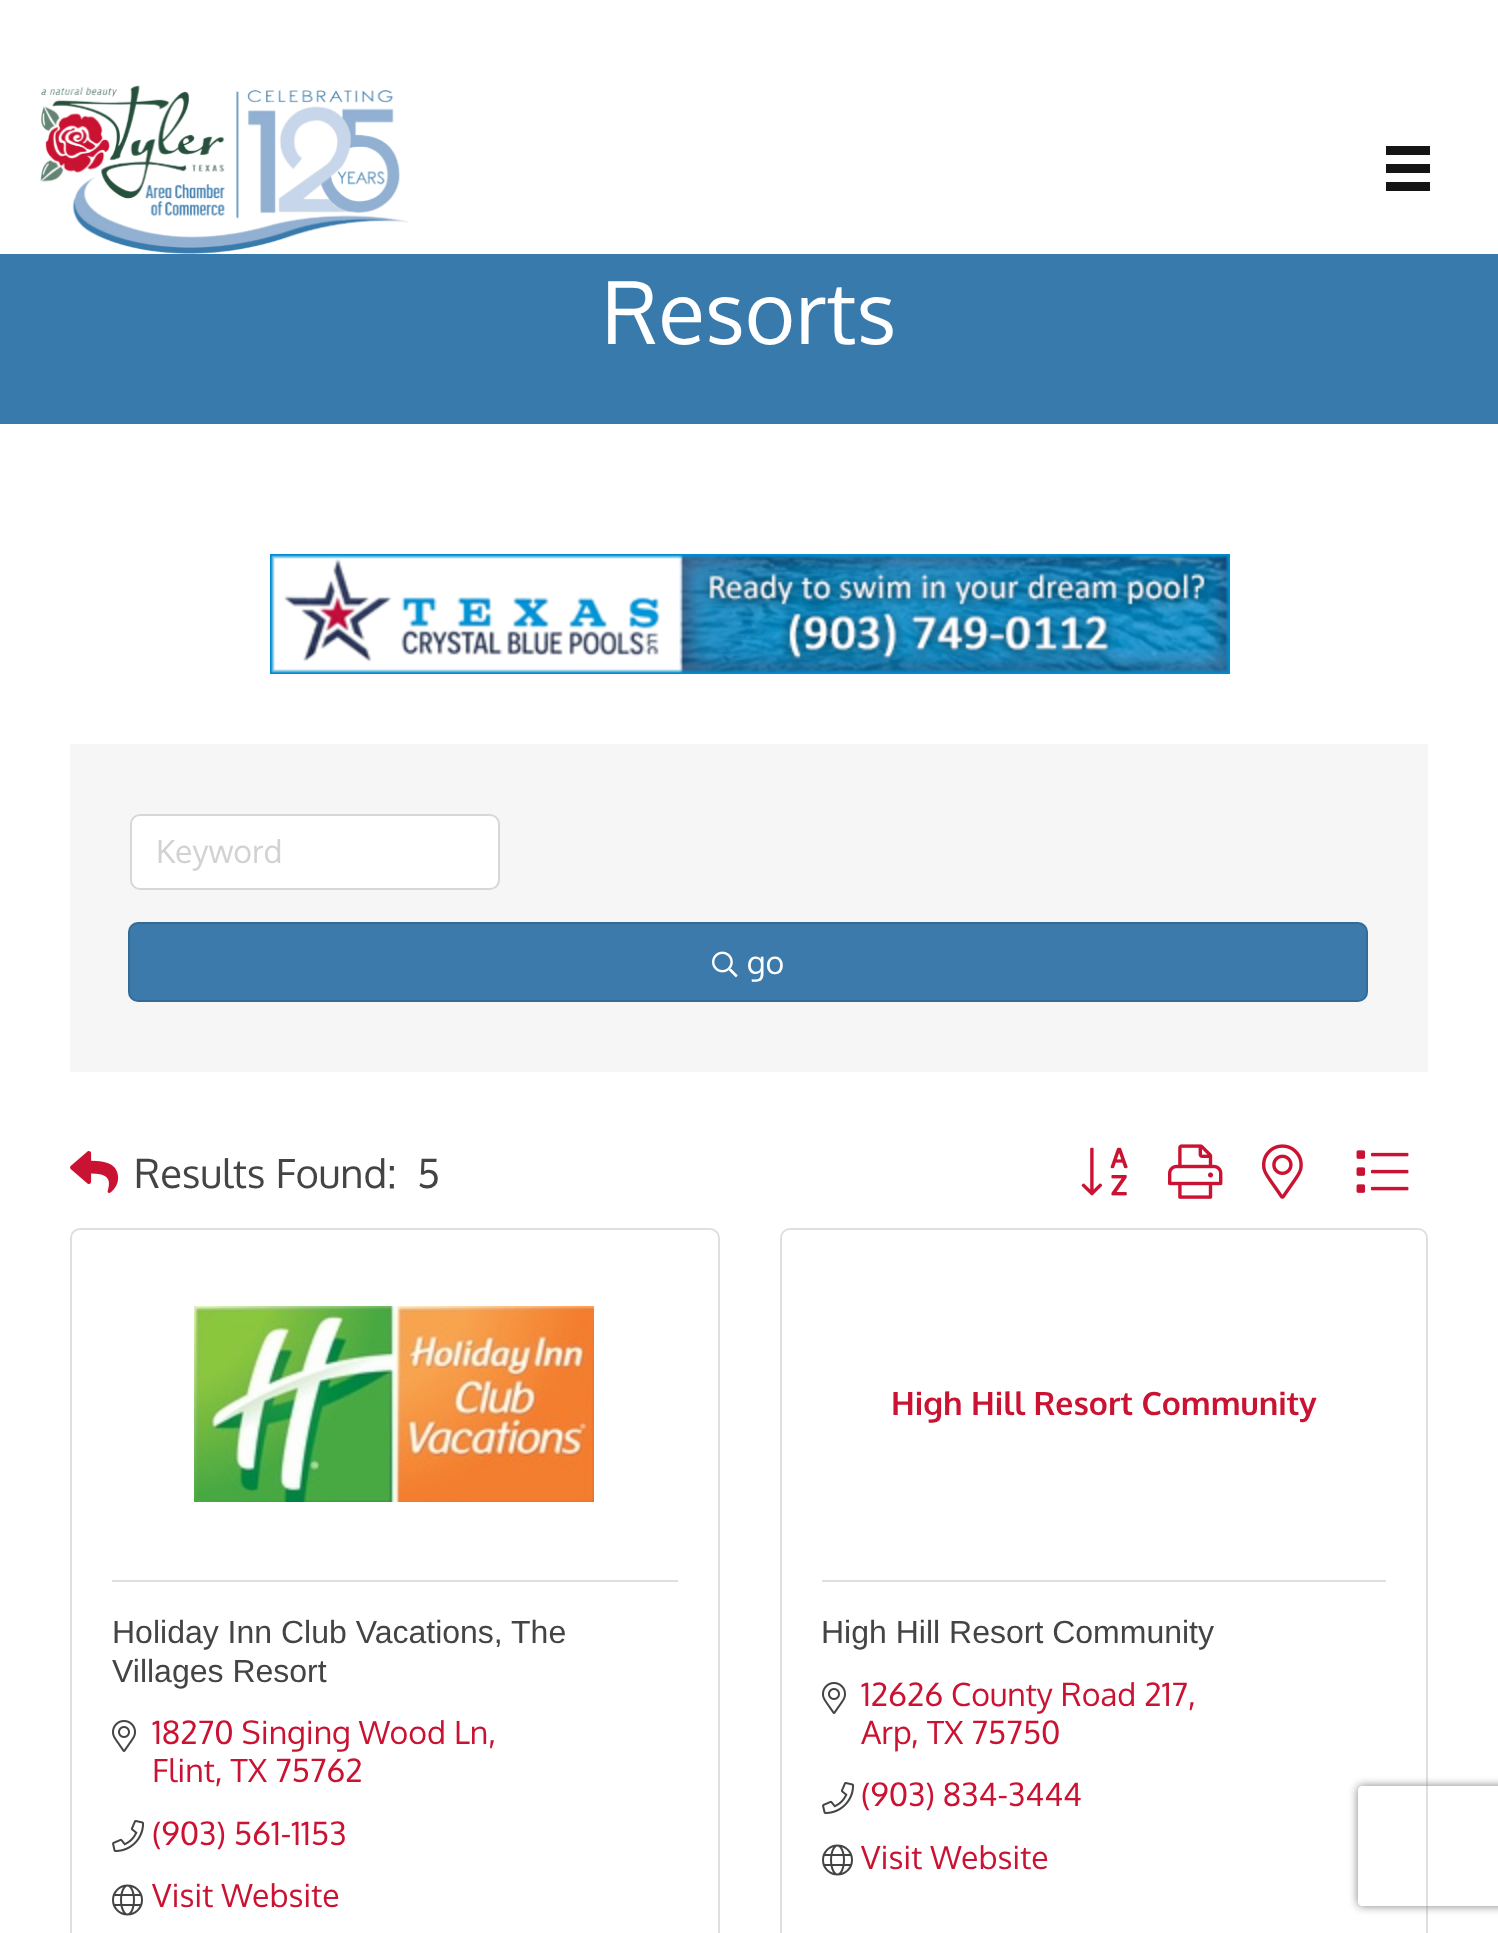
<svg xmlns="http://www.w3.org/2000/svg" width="1498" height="1933">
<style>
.a{font:86px Oxygen;fill:#fff}
.b{font:32px Oxygen;fill:#d2d2d2}
.c{font:32px Oxygen;fill:#fff}
.d{font:40px Oxygen;fill:#444}
.e{font:32px Liberation Sans;fill:#444}
.f{font:32px Oxygen;fill:#ca1333}
.g{font:bold 32px Oxygen;fill:#ca1333}
</style>
<defs>
<clipPath id="clip1"><path d="M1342 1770h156v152h-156zm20 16h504c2 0 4 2 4 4v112c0 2-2 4-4 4h-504c-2 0-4-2-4-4v-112c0-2 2-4 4-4z" clip-rule="evenodd"/></clipPath>
</defs>
<rect width="100%" height="100%" fill="#fff"/>
<image href="1.png" x="40" y="85" width="369" height="169"/>
<path fill="#141414" d="M1386 146h44v9H1386z"/>
<path fill="#141414" d="M1386 164h44v9H1386z"/>
<path fill="#141414" d="M1386 182h44v9H1386z"/>
<path fill="#397aac" d="M0 254h1498v170H0z"/>
<image href="2.png" x="270" y="554" width="960" height="120"/>
<path fill="#f6f6f6" d="M70 744h1358v328H70z"/>
<rect fill="#fff" stroke="#d7d7d7" stroke-width="2" x="131" y="815" width="368" height="74" rx="9"/>
<rect fill="#3b7aab" x="128" y="922" width="1240" height="80" rx="10"/>
<rect fill="none" stroke="#0000001f" stroke-width="2" x="129" y="923" width="1238" height="78" rx="9"/>
<image href="3.png" x="712" y="951" width="26" height="27"/>
<image href="4.png" x="70" y="1151" width="49" height="42"/>
<image href="5.png" x="1081" y="1147" width="47" height="49"/>
<image href="6.png" x="1168" y="1144" width="55" height="55"/>
<image href="7.png" x="1262" y="1144" width="41" height="55"/>
<image href="8.png" x="1356" y="1150" width="53" height="43"/>
<rect fill="none" stroke="#dfdfdf" stroke-width="2" x="71" y="1229" width="648" height="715" rx="9"/>
<image href="9.png" x="194" y="1306" width="400" height="196"/>
<path fill="#dfdfdf" d="M112 1580h566v2H112z"/>
<image href="10.png" x="112" y="1720" width="24" height="32"/>
<image href="11.png" x="112" y="1820" width="33" height="32"/>
<image href="12.png" x="112" y="1884" width="31" height="32"/>
<rect fill="none" stroke="#dfdfdf" stroke-width="2" x="781" y="1229" width="646" height="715" rx="9"/>
<path fill="#dfdfdf" d="M822 1580h564v2H822z"/>
<image href="10.png" x="822" y="1682" width="24" height="32"/>
<image href="11.png" x="822" y="1782" width="33" height="32"/>
<image href="12.png" x="822" y="1844" width="31" height="32"/>
<g clip-path="url(#clip1)">
<rect fill="#808080" filter="blur(5px)" x="1358" y="1786" width="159" height="120" rx="4"/>
</g>
<text class="a" x="602" y="344">Resorts</text>
<text class="b" x="156" y="863">Keyword</text>
<text class="c" x="747" y="974">go</text>
<text class="d" x="134" y="1188">Results Found:</text>
<text class="d" x="417" y="1188">5</text>
<text class="e" x="112" y="1643">Holiday Inn Club Vacations, The</text>
<text class="e" x="112" y="1682">Villages Resort</text>
<text class="f" x="152" y="1744">18270 Singing Wood Ln,</text>
<text class="f" x="152" y="1782">Flint, TX 75762</text>
<text class="f" x="152" y="1845">(903) 561-1153</text>
<text class="f" x="152" y="1907">Visit Website</text>
<text class="g" x="891" y="1415">High Hill Resort Community</text>
<text class="e" x="821" y="1643">High Hill Resort Community</text>
<text class="f" x="861" y="1706">12626 County Road 217,</text>
<text class="f" x="861" y="1744">Arp</text>
<text class="f" x="911" y="1744">, TX 75750</text>
<text class="f" x="861" y="1806">(903) 834-3444</text>
<text class="f" x="861" y="1869">Visit Website</text>
</svg>
